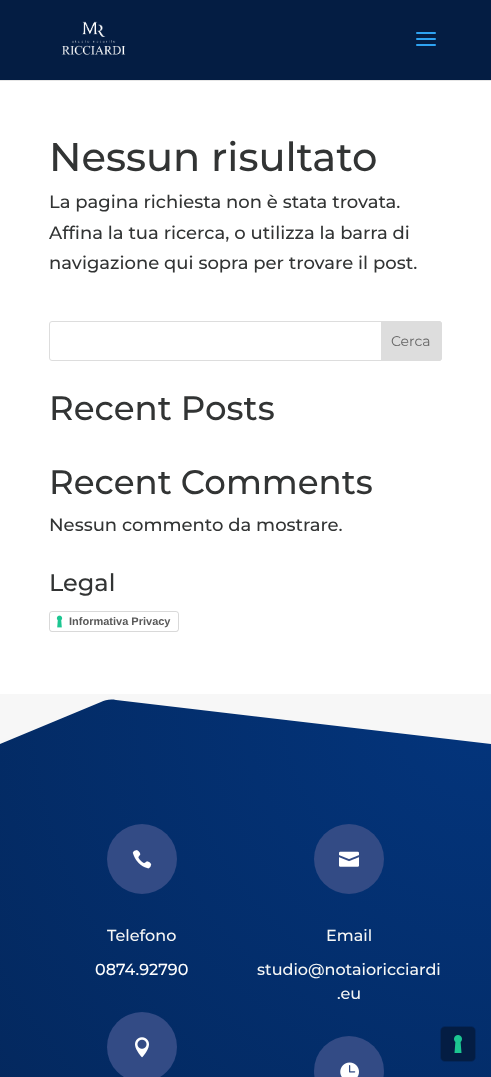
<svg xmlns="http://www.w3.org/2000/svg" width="491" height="1077">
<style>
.a{font:500 40px Montserrat;fill:#323434}
.b{font:500 18px Montserrat;fill:#323434}
.c{font:14px Montserrat;fill:#666}
.d{font:500 34px Montserrat;fill:#323434}
.e{font:500 24px Montserrat;fill:#323434}
.f{font:bold 11px Liberation Sans;fill:#595959}
.g{font:500 16px Montserrat;fill:#f6f7f6}
.h{font:500 16px Montserrat;fill:#fff}
</style>
<defs>
<radialGradient id="g1" gradientUnits="userSpaceOnUse" cx="491" cy="694" r="1199"><stop offset="0" stop-color="#03357d"/><stop offset="1" stop-color="#041d43"/></radialGradient>
</defs>
<rect width="100%" height="100%" fill="#fff"/>
<path fill="#e6e6e6" d="M0 80h491v1H0z"/>
<path fill="#041d43" d="M0 0h491v80H0z"/>
<image href="1.png" x="61" y="21" width="65" height="34"/>
<image href="2.png" x="416" y="32" width="20" height="14"/>
<rect fill="none" stroke="#ddd" x="49.5" y="321.5" width="392" height="39" rx="2.5"/>
<path fill="#ddd" stroke="#ddd" d="M381.5 321.5h57.5c1.5 0 2.5 1 2.5 2.5v34c0 1.5-1 2.5-2.5 2.5h-57.5z"/>
<rect fill="#00000026" filter="blur(0.5px)" x="50" y="613" width="128" height="19" rx="2"/>
<rect fill="#fff" x="49" y="611" width="130" height="21" rx="3"/>
<image href="3.png" x="56" y="615" width="7" height="13"/>
<rect fill="none" stroke="#00000026" x="49.5" y="611.5" width="129" height="20" rx="2.5"/>
<path fill="url(#g1)" d="M0 699h491v378H0z"/>
<path fill="#f7f7f7" d="M0 744l101-42c4-2 9-3 15-2l375 44v-50h-491z"/>
<circle fill="#334b85" cx="142" cy="859" r="35"/>
<image href="4.png" x="132" y="850" width="20" height="19"/>
<circle fill="#334b85" cx="142" cy="1047" r="35"/>
<image href="5.png" x="135" y="1037" width="14" height="21"/>
<circle fill="#334b85" cx="349" cy="859" r="35"/>
<image href="6.png" x="339" y="851" width="20" height="16"/>
<circle fill="#334b85" cx="349" cy="1071" r="35"/>
<image href="7.png" x="340" y="1062" width="19" height="15"/>
<rect fill="none" stroke="#03275c" x="440.5" y="1026.5" width="35" height="35" rx="4.5"/>
<rect fill="#041d43" x="441" y="1027" width="34" height="34" rx="4"/>
<image href="8.png" x="454" y="1035" width="8" height="18"/>
<text class="a" x="49" y="171">Nessun risultato</text>
<text class="b" x="49" y="208">La pagina richiesta non è stata trovata.</text>
<text class="b" x="49" y="239">Affina la tua ricerca, o utilizza la barra di</text>
<text class="b" x="49" y="269">navigazione qui sopra per trovare il post.</text>
<text class="c" x="391" y="346">Cerca</text>
<text class="d" x="49" y="420">Recent Posts</text>
<text class="d" x="49" y="494">Recent Comments</text>
<text class="b" x="49" y="531">Nessun commento da mostrare.</text>
<text class="e" x="49" y="591">Legal</text>
<text class="f" x="69" y="625">Informativa Privacy</text>
<text class="g" x="107" y="941">Telefono</text>
<text class="h" x="95" y="975">0874.92790</text>
<text class="g" x="326" y="941">Email</text>
<text class="g" x="257" y="975">studio@notaioricciardi</text>
<text class="g" x="337" y="999">.eu</text>
</svg>
